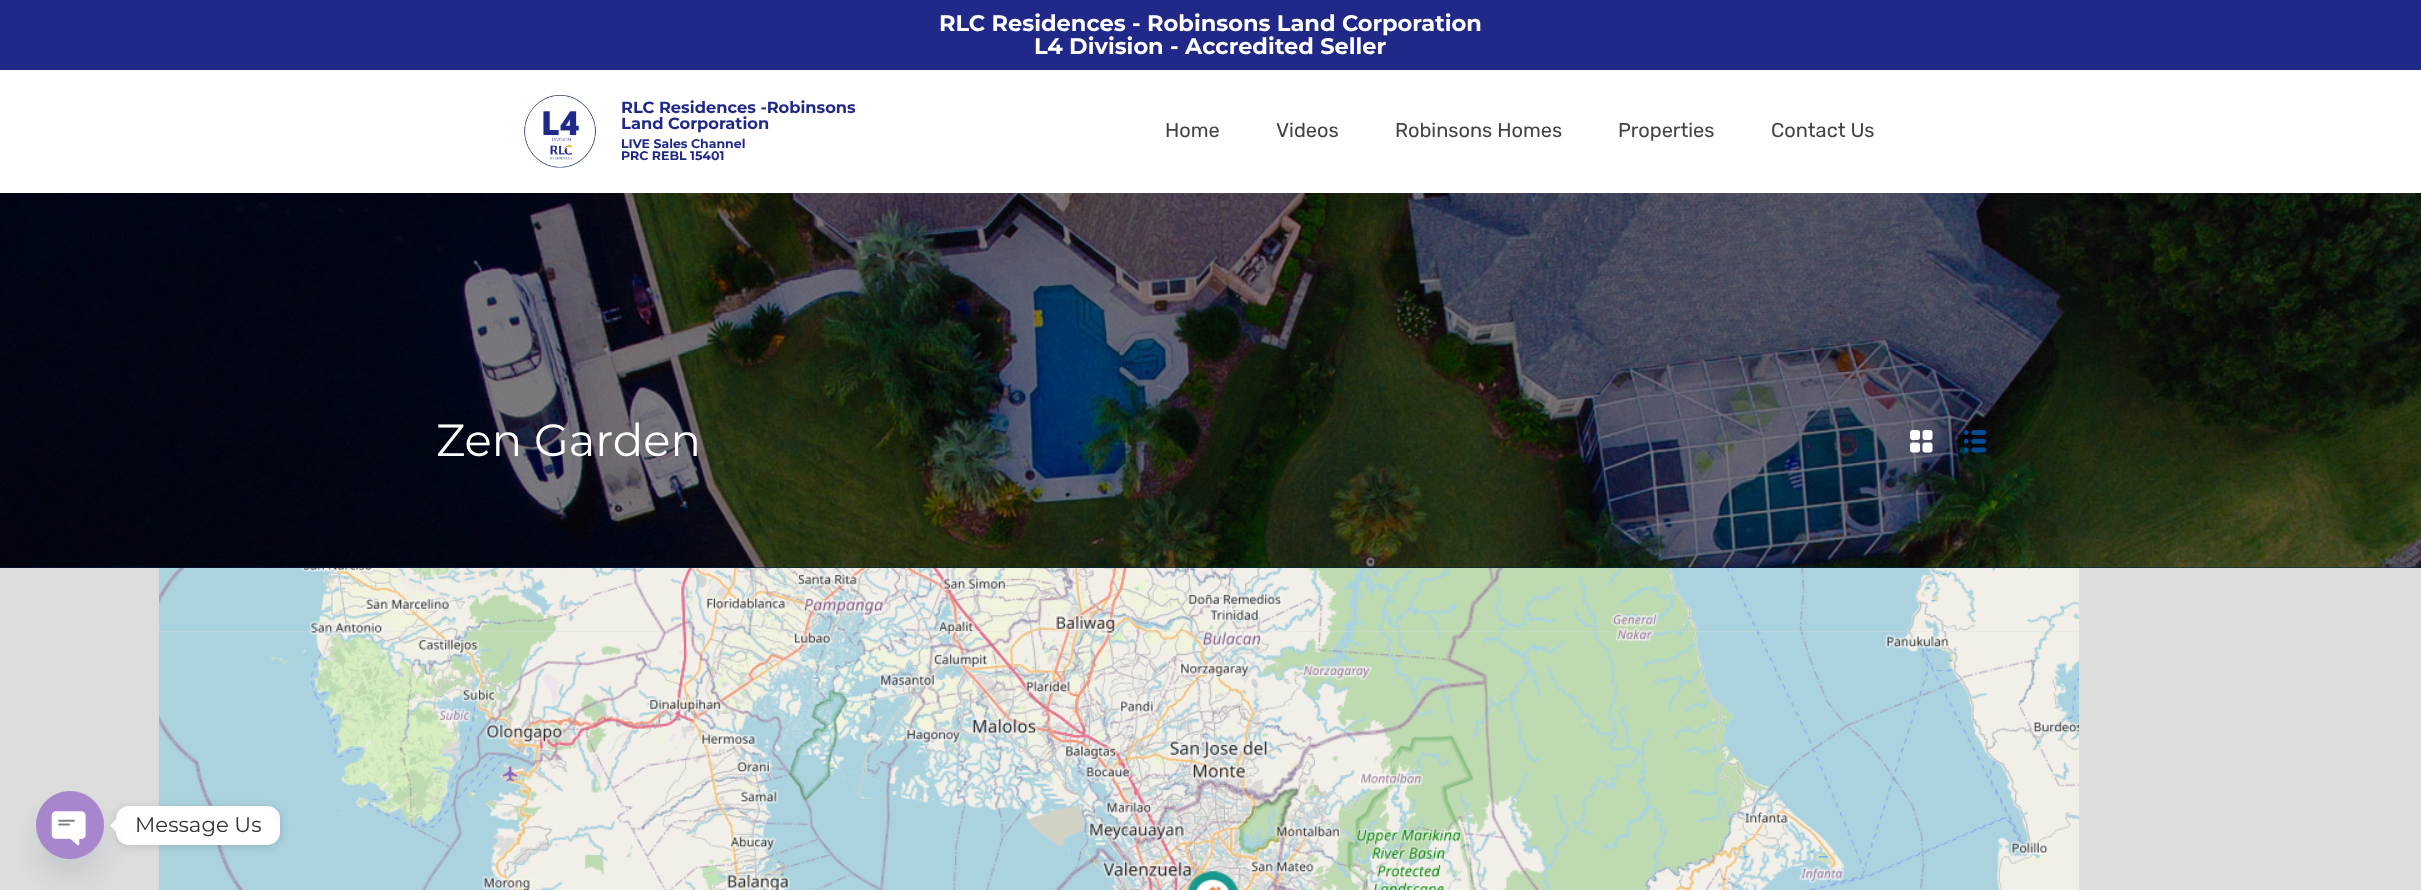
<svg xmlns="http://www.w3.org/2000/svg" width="2421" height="890">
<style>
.a{font:bold 22.5px Montserrat;fill:#fff}
.b{font:bold 16.25px Montserrat;fill:#202988}
.c{font:bold 12.5px Montserrat;fill:#202988}
.d{font:20px Rubik;fill:#444}
.e{font:100 45px Montserrat;fill:#fff}
.f{font:100 21.25px Montserrat;fill:#333}
</style>
<rect width="100%" height="100%" fill="#00264c"/>
<path fill="#202988" d="M0 0h2421v70H0z"/>
<path fill="#fff" d="M0 70h2421v123H0z"/>
<image href="1.png" x="524" y="95" width="72" height="73"/>
<image href="2.png" x="0" y="193" width="2421" height="375"/>
<image href="3.png" x="1910" y="430" width="23" height="23"/>
<image href="4.png" x="1964" y="430" width="22" height="23"/>
<path fill="#ddd" d="M0 568h2421v322H0z"/>
<image href="5.png" x="159" y="568" width="320" height="63"/>
<image href="6.png" x="479" y="568" width="320" height="63"/>
<image href="7.png" x="799" y="568" width="320" height="63"/>
<image href="8.png" x="1119" y="568" width="320" height="63"/>
<image href="9.png" x="1439" y="568" width="320" height="63"/>
<image href="10.png" x="1759" y="568" width="320" height="63"/>
<image href="11.png" x="159" y="631" width="320" height="259"/>
<image href="12.png" x="479" y="631" width="320" height="259"/>
<image href="13.png" x="799" y="631" width="320" height="259"/>
<image href="14.png" x="1119" y="631" width="320" height="259"/>
<image href="15.png" x="1439" y="631" width="320" height="259"/>
<image href="16.png" x="1759" y="631" width="320" height="259"/>
<image href="17.png" x="1187" y="871" width="52" height="19"/>
<rect fill="#00000026" filter="blur(5px)" x="116" y="808" width="164" height="38" rx="13"/>
<rect fill="#fff" x="116" y="806" width="164" height="39" rx="13"/>
<path fill="#fff" d="M116 819.5v12.5l-6-6.5z"/>
<rect fill="#49687e29" filter="blur(15px)" x="36" y="811" width="68" height="68" rx="34"/>
<image href="18.png" x="36" y="791" width="68" height="68"/>
<text class="a" x="939" y="31">RLC Residences - Robinsons Land Corporation</text>
<text class="a" x="1034" y="54">L4 Division - Accredited Seller</text>
<text class="b" x="621" y="113">RLC Residences -Robinsons</text>
<text class="b" x="621" y="129">Land Corporation</text>
<text class="c" x="621" y="148">LIVE Sales Channel</text>
<text class="c" x="621" y="160">PRC REBL 15401</text>
<text class="d" x="1165" y="137">Home</text>
<text class="d" x="1276" y="137">Videos</text>
<text class="d" x="1395" y="137">Robinsons Homes</text>
<text class="d" x="1618" y="137">Properties</text>
<text class="d" x="1771" y="137">Contact Us</text>
<text class="e" x="436" y="456">Zen Garden</text>
<text class="f" x="135" y="832">Message Us</text>
</svg>
